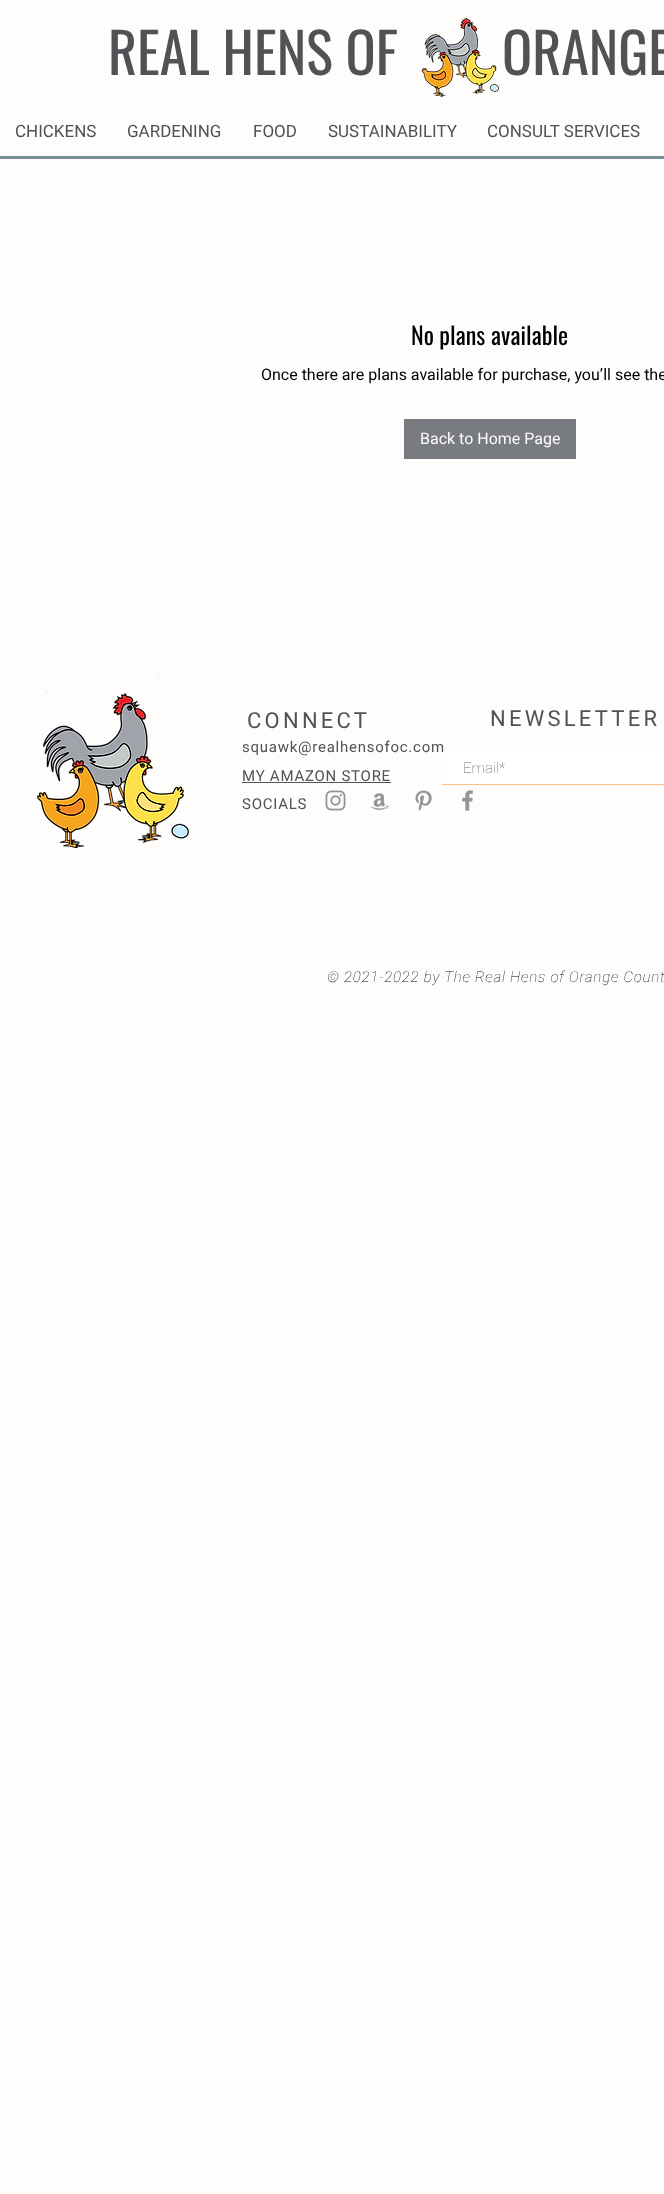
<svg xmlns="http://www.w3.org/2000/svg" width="664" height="2194">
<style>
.a{font:56px Oswald;fill:#505255}
.b{font:17px Roboto;fill:#505255}
.c{font:24px Oswald;fill:#000}
.d{font:16px Roboto;fill:#000}
.e{font:16px Roboto;fill:#fffdfb}
.f{font:22px Roboto;letter-spacing:3.25px;fill:#505255}
.g{font:15px Roboto;letter-spacing:0.75px;fill:#505255}
.h{font:100 15px Roboto;fill:#505f66}
.i{font:italic 100 15px Roboto;letter-spacing:0.75px;fill:#000}
</style>
<rect width="100%" height="100%" fill="#fffdfb"/>
<image href="1.png" x="417" y="8" width="82" height="89"/>
<path fill="#778e99" d="M0 156h664v3H0z"/>
<path fill="#787b7f" d="M404 419h172v40H404z"/>
<image href="2.png" x="28" y="674" width="161" height="174"/>
<path fill="#505255" d="M242 782h149v1H242z"/>
<image href="3.png" x="325" y="790" width="21" height="21"/>
<image href="4.png" x="370" y="793" width="19" height="17"/>
<image href="5.png" x="415" y="790" width="17" height="21"/>
<image href="6.png" x="462" y="790" width="11" height="21"/>
<path fill="#f9c18c" d="M442 784h222v1H442z"/>
<text class="a" x="108" y="75">REAL HENS OF</text>
<text class="a" x="502" y="75">ORANGE</text>
<text class="b" x="15" y="137">CHICKENS</text>
<text class="b" x="127" y="137">GARDENING</text>
<text class="b" x="253" y="137">FOOD</text>
<text class="b" x="328" y="137">SUSTAINABILITY</text>
<text class="b" x="487" y="137">CONSULT SERVICES</text>
<text class="c" x="411" y="345">No plans available</text>
<text class="d" x="261" y="380">Once there are plans available for purchase, you’ll see the</text>
<text class="e" x="420" y="444">Back to Home Page</text>
<text class="f" x="247" y="728">CONNECT</text>
<text class="g" x="242" y="752">squawk@realhensofoc.com</text>
<text class="g" x="242" y="781">MY AMAZON STORE</text>
<text class="g" x="242" y="809">SOCIALS</text>
<text class="f" x="490" y="726">NEWSLETTER</text>
<path fill="#fff" d="M442 752h222v32H442z"/>
<text class="h" x="463" y="773">Email*</text>
<text class="i" x="327" y="982">© 2021-2022 by The Real Hens of Orange Count</text>
</svg>
